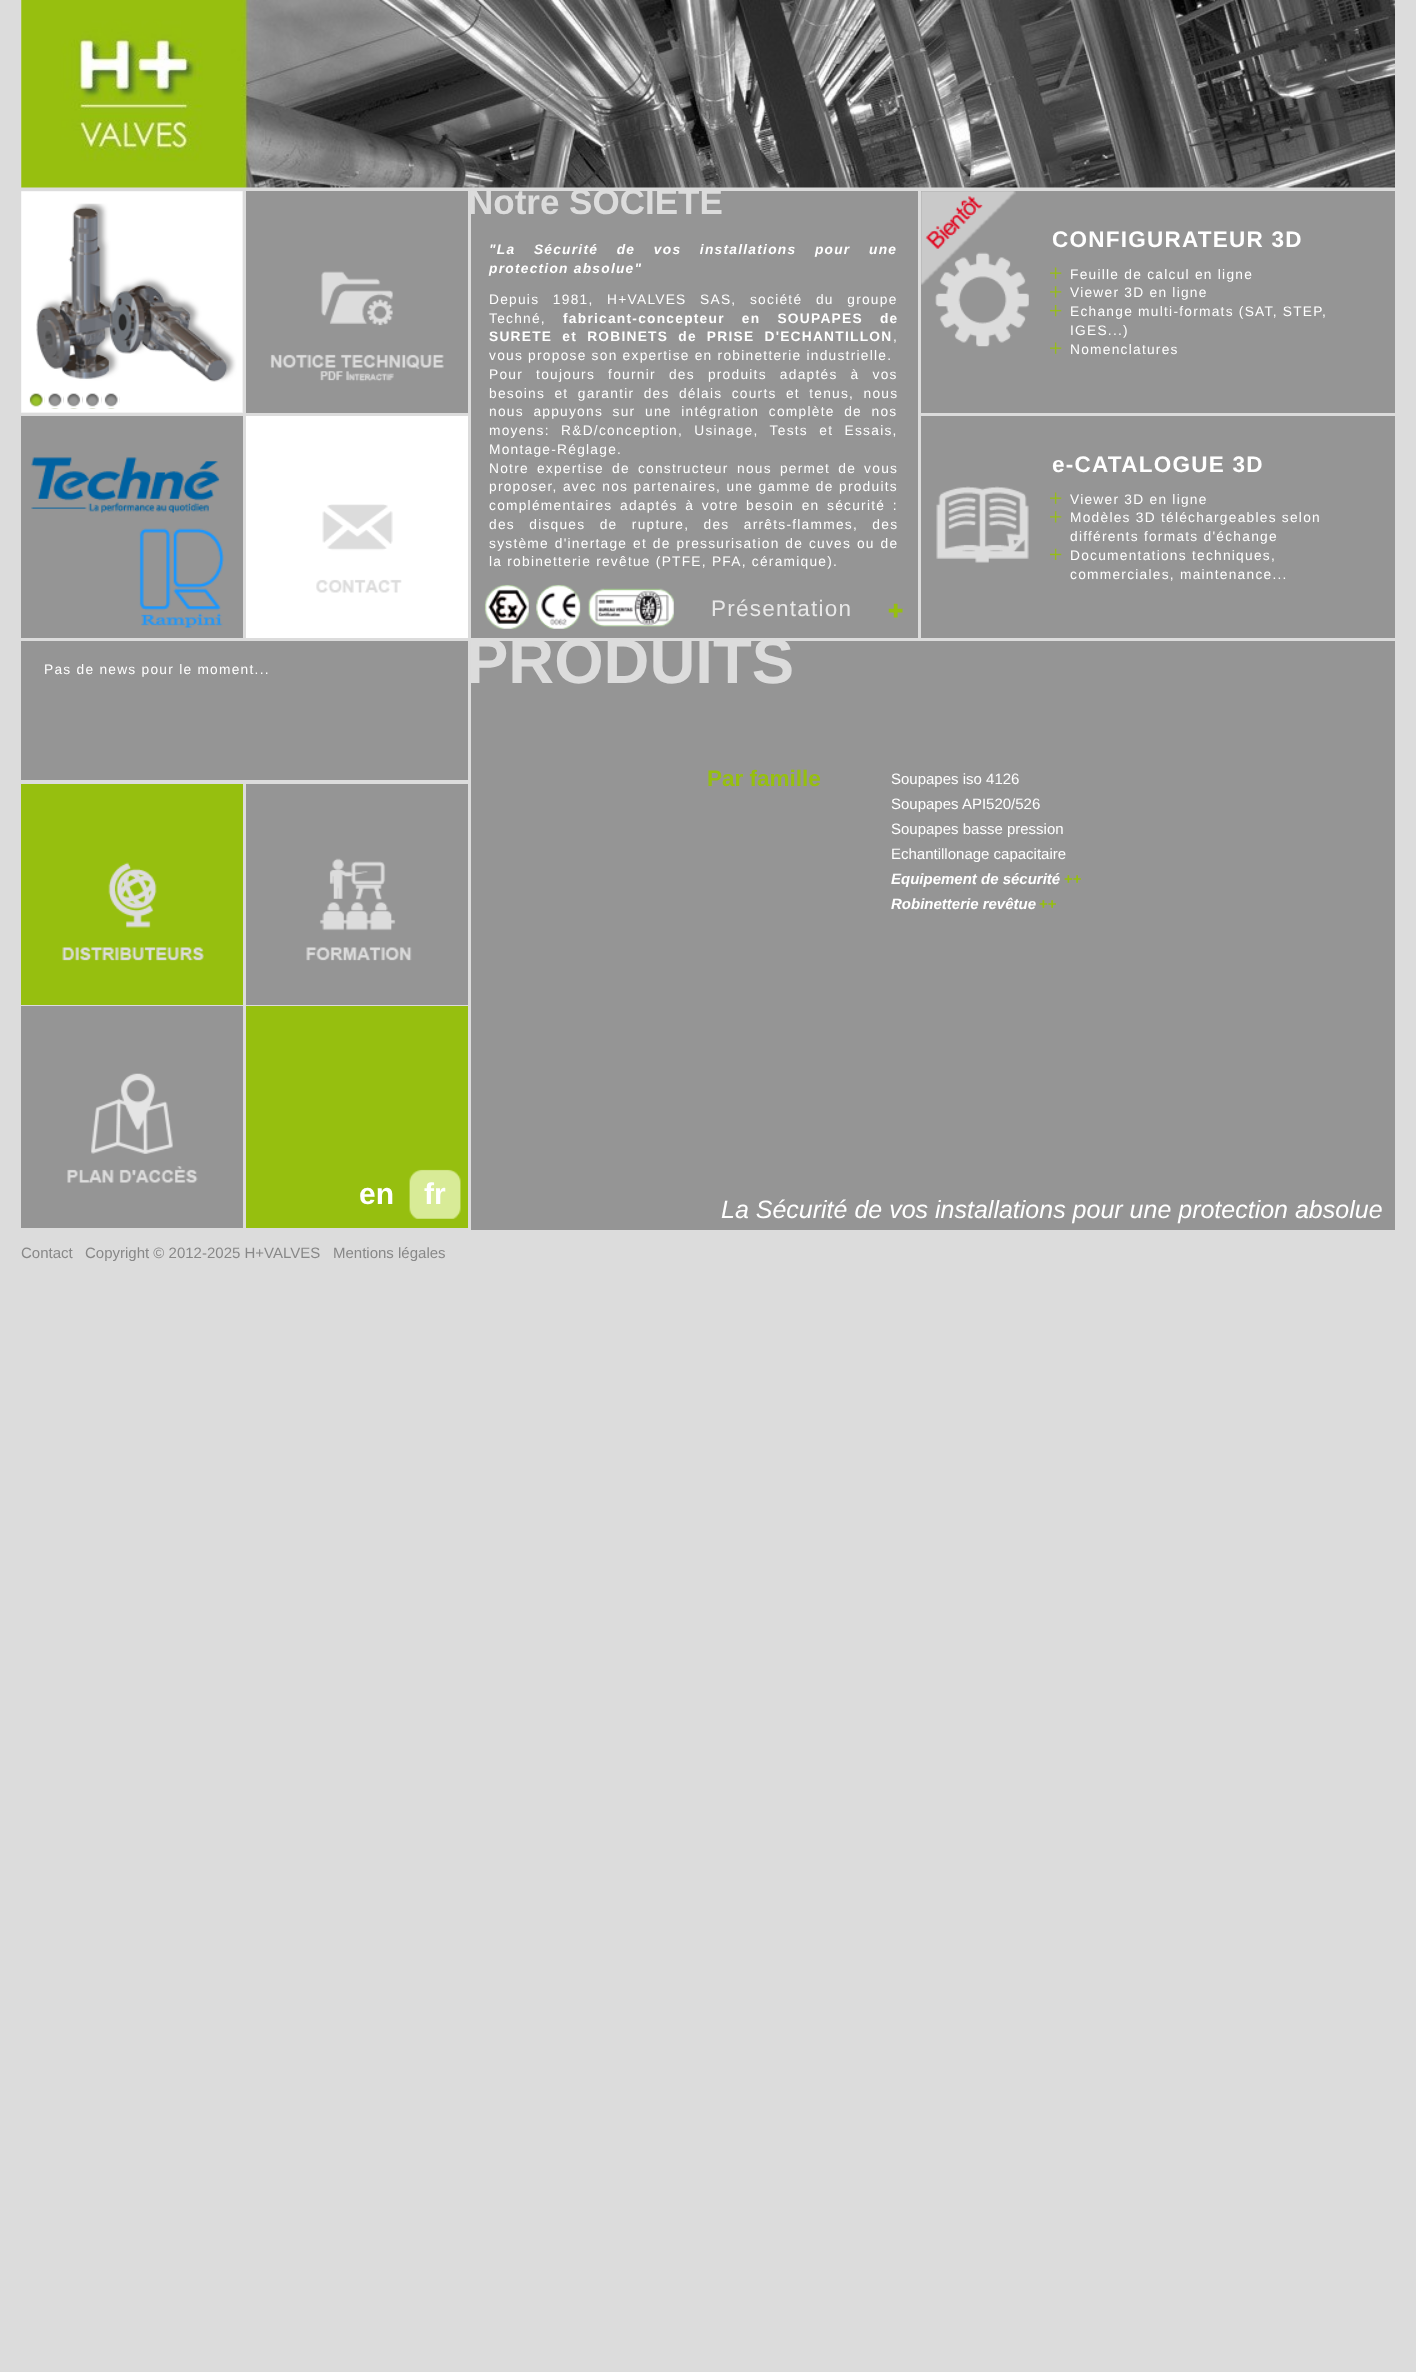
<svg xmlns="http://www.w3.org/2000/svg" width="1416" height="2372">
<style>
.a{font:bold 35px Liberation Sans;fill:#dcdcdc}
.b{font:italic bold 13.75px Liberation Sans;letter-spacing:1.25px;fill:#fff}
.c{font:13.75px Liberation Sans;letter-spacing:1.25px;fill:#fff}
.d{font:bold 13.75px Liberation Sans;letter-spacing:1.25px;fill:#fff}
.e{font:22.5px Liberation Sans;letter-spacing:1.25px;fill:#e8e8e8}
.f{font:bold 22.5px Liberation Sans;letter-spacing:1.25px;fill:#fff}
.g{font:bold 30px Liberation Sans;fill:#fff}
.h{font:bold 63.5px Liberation Sans;fill:#dcdcdc}
.i{font:bold 22.5px Liberation Sans;fill:#96bf0f}
.j{font:15px Liberation Sans;fill:#fff}
.k{font:italic bold 15px Liberation Sans;fill:#fff}
.l{font:bold 15px Liberation Sans;fill:#96bf0f}
.m{font:italic 25px Liberation Sans;fill:#fff}
.n{font:15px Liberation Sans;fill:#888}
</style>
<rect width="100%" height="100%" fill="#dcdcdc"/>
<image href="1.png" x="21" y="0" width="1374" height="188"/>
<path fill="#eee" d="M21 191h222v222H21z"/>
<image href="2.png" x="21" y="191" width="222" height="222"/>
<image href="3.png" x="29" y="393" width="16" height="14"/>
<image href="4.png" x="48" y="393" width="16" height="16"/>
<image href="5.png" x="67" y="393" width="16" height="16"/>
<image href="6.png" x="86" y="393" width="16" height="16"/>
<image href="7.png" x="104" y="393" width="16" height="16"/>
<path fill="#959595" d="M21 416h222v222H21z"/>
<image href="8.png" x="31" y="457" width="189" height="56"/>
<image href="9.png" x="139" y="528" width="85" height="100"/>
<path fill="#959595" d="M246 191h222v222H246z"/>
<image href="10.png" x="270" y="271" width="174" height="111"/>
<path fill="#fff" d="M246 416h222v222H246z"/>
<image href="11.png" x="316" y="504" width="86" height="89"/>
<path fill="#959595" d="M471 191h447v447H471z"/>
<image href="12.png" x="484" y="584" width="45" height="45"/>
<image href="13.png" x="536" y="584" width="45" height="45"/>
<image href="14.png" x="588" y="588" width="86" height="39"/>
<image href="15.png" x="888" y="603" width="15" height="15"/>
<path fill="#959595" d="M921 191h474v222H921z"/>
<image href="16.png" x="921" y="191" width="95" height="94"/>
<image href="17.png" x="935" y="252" width="94" height="95"/>
<image href="18.png" x="1050" y="267" width="12" height="12"/>
<image href="19.png" x="1050" y="286" width="12" height="12"/>
<image href="20.png" x="1050" y="305" width="12" height="12"/>
<image href="18.png" x="1050" y="342" width="12" height="12"/>
<path fill="#959595" d="M921 416h474v222H921z"/>
<image href="21.png" x="936" y="486" width="93" height="77"/>
<image href="18.png" x="1050" y="492" width="12" height="12"/>
<image href="19.png" x="1050" y="511" width="12" height="12"/>
<image href="22.png" x="1050" y="548" width="12" height="12"/>
<path fill="#959595" d="M21 641h447v139H21z"/>
<path fill="#96bf0f" d="M21 784h222v221H21z"/>
<image href="23.png" x="62" y="862" width="142" height="99"/>
<path fill="#959595" d="M246 784h222v221H246z"/>
<image href="24.png" x="306" y="858" width="106" height="103"/>
<path fill="#959595" d="M21 1006h222v222H21z"/>
<image href="25.png" x="67" y="1073" width="131" height="110"/>
<path fill="#96bf0f" d="M246 1006h222v222H246z"/>
<image href="26.png" x="409" y="1169" width="52" height="50"/>
<path fill="#959595" d="M471 641h924v589H471z"/>
<text class="a" x="468" y="214">Notre SOCIETE</text>
<text class="b" x="489" y="254" word-spacing="13.5">"La Sécurité de vos installations pour une</text>
<text class="b" x="489" y="273">protection absolue"</text>
<text class="c" x="489" y="304" word-spacing="8.5">Depuis 1981, H+VALVES SAS, société du groupe</text>
<text class="c" x="489" y="323">Techné,</text>
<text class="d" x="563" y="323" word-spacing="12">fabricant-concepteur en SOUPAPES de</text>
<text class="d" x="489" y="341" word-spacing="5">SURETE et ROBINETS de PRISE D'ECHANTILLON</text>
<text class="c" x="893" y="341">,</text>
<text class="c" x="489" y="360">vous propose son expertise en robinetterie industrielle.</text>
<text class="c" x="489" y="379" word-spacing="8">Pour toujours fournir des produits adaptés à vos</text>
<text class="c" x="489" y="398" word-spacing="4.25">besoins et garantir des délais courts et tenus, nous</text>
<text class="c" x="489" y="416" word-spacing="4.5">nous appuyons sur une intégration complète de nos</text>
<text class="c" x="489" y="435" word-spacing="6.25">moyens: R&amp;D/conception, Usinage, Tests et Essais,</text>
<text class="c" x="489" y="454">Montage-Réglage.</text>
<text class="c" x="489" y="473" word-spacing="3">Notre expertise de constructeur</text>
<text class="c" x="737" y="473" word-spacing="3">nous permet de vous</text>
<text class="c" x="489" y="491" word-spacing="0.25">proposer, avec nos partenaires, une gamme de produits</text>
<text class="c" x="489" y="510" word-spacing="2.5">complémentaires adaptés à votre besoin en sécurité :</text>
<text class="c" x="489" y="529" word-spacing="9.25">des disques de rupture, des arrêts-flammes, des</text>
<text class="c" x="489" y="548" word-spacing="0.75">système d'inertage et de pressurisation de cuves ou de</text>
<text class="c" x="489" y="566">la robinetterie revêtue (PTFE, PFA, céramique).</text>
<text class="e" x="711" y="616">Présentation</text>
<text class="f" x="1052" y="247">CONFIGURATEUR 3D</text>
<text class="c" x="1070" y="279">Feuille de calcul en ligne</text>
<text class="c" x="1070" y="297">Viewer 3D en ligne</text>
<text class="c" x="1070" y="316">Echange multi-formats (SAT, STEP,</text>
<text class="c" x="1070" y="335">IGES...)</text>
<text class="c" x="1070" y="354">Nomenclatures</text>
<text class="f" x="1052" y="472">e-CATALOGUE 3D</text>
<text class="c" x="1070" y="504">Viewer 3D en ligne</text>
<text class="c" x="1070" y="522">Modèles 3D téléchargeables selon</text>
<text class="c" x="1070" y="541">différents formats d'échange</text>
<text class="c" x="1070" y="560">Documentations techniques,</text>
<text class="c" x="1070" y="579">commerciales, maintenance...</text>
<text class="c" x="44" y="674">Pas de news pour le moment...</text>
<text class="g" x="359" y="1204">en</text>
<text class="g" x="424" y="1204">fr</text>
<text class="h" x="466" y="683">PRODUITS</text>
<text class="i" x="707" y="786">Par famille</text>
<text class="j" x="891" y="784">Soupapes iso 4126</text>
<text class="j" x="891" y="809">Soupapes API520/526</text>
<text class="j" x="891" y="834">Soupapes basse pression</text>
<text class="j" x="891" y="859">Echantillonage capacitaire</text>
<text class="k" x="891" y="884">Equipement de sécurité</text>
<text class="l" x="1064" y="884">++</text>
<text class="k" x="891" y="909">Robinetterie revêtue</text>
<text class="l" x="1039" y="909">++</text>
<text class="m" x="721" y="1218">La Sécurité de vos installations pour une protection absolue</text>
<text class="n" x="21" y="1258">Contact</text>
<text class="n" x="85" y="1258">Copyright © 2012-2025 H+VALVES</text>
<text class="n" x="333" y="1258">Mentions légales</text>
</svg>
